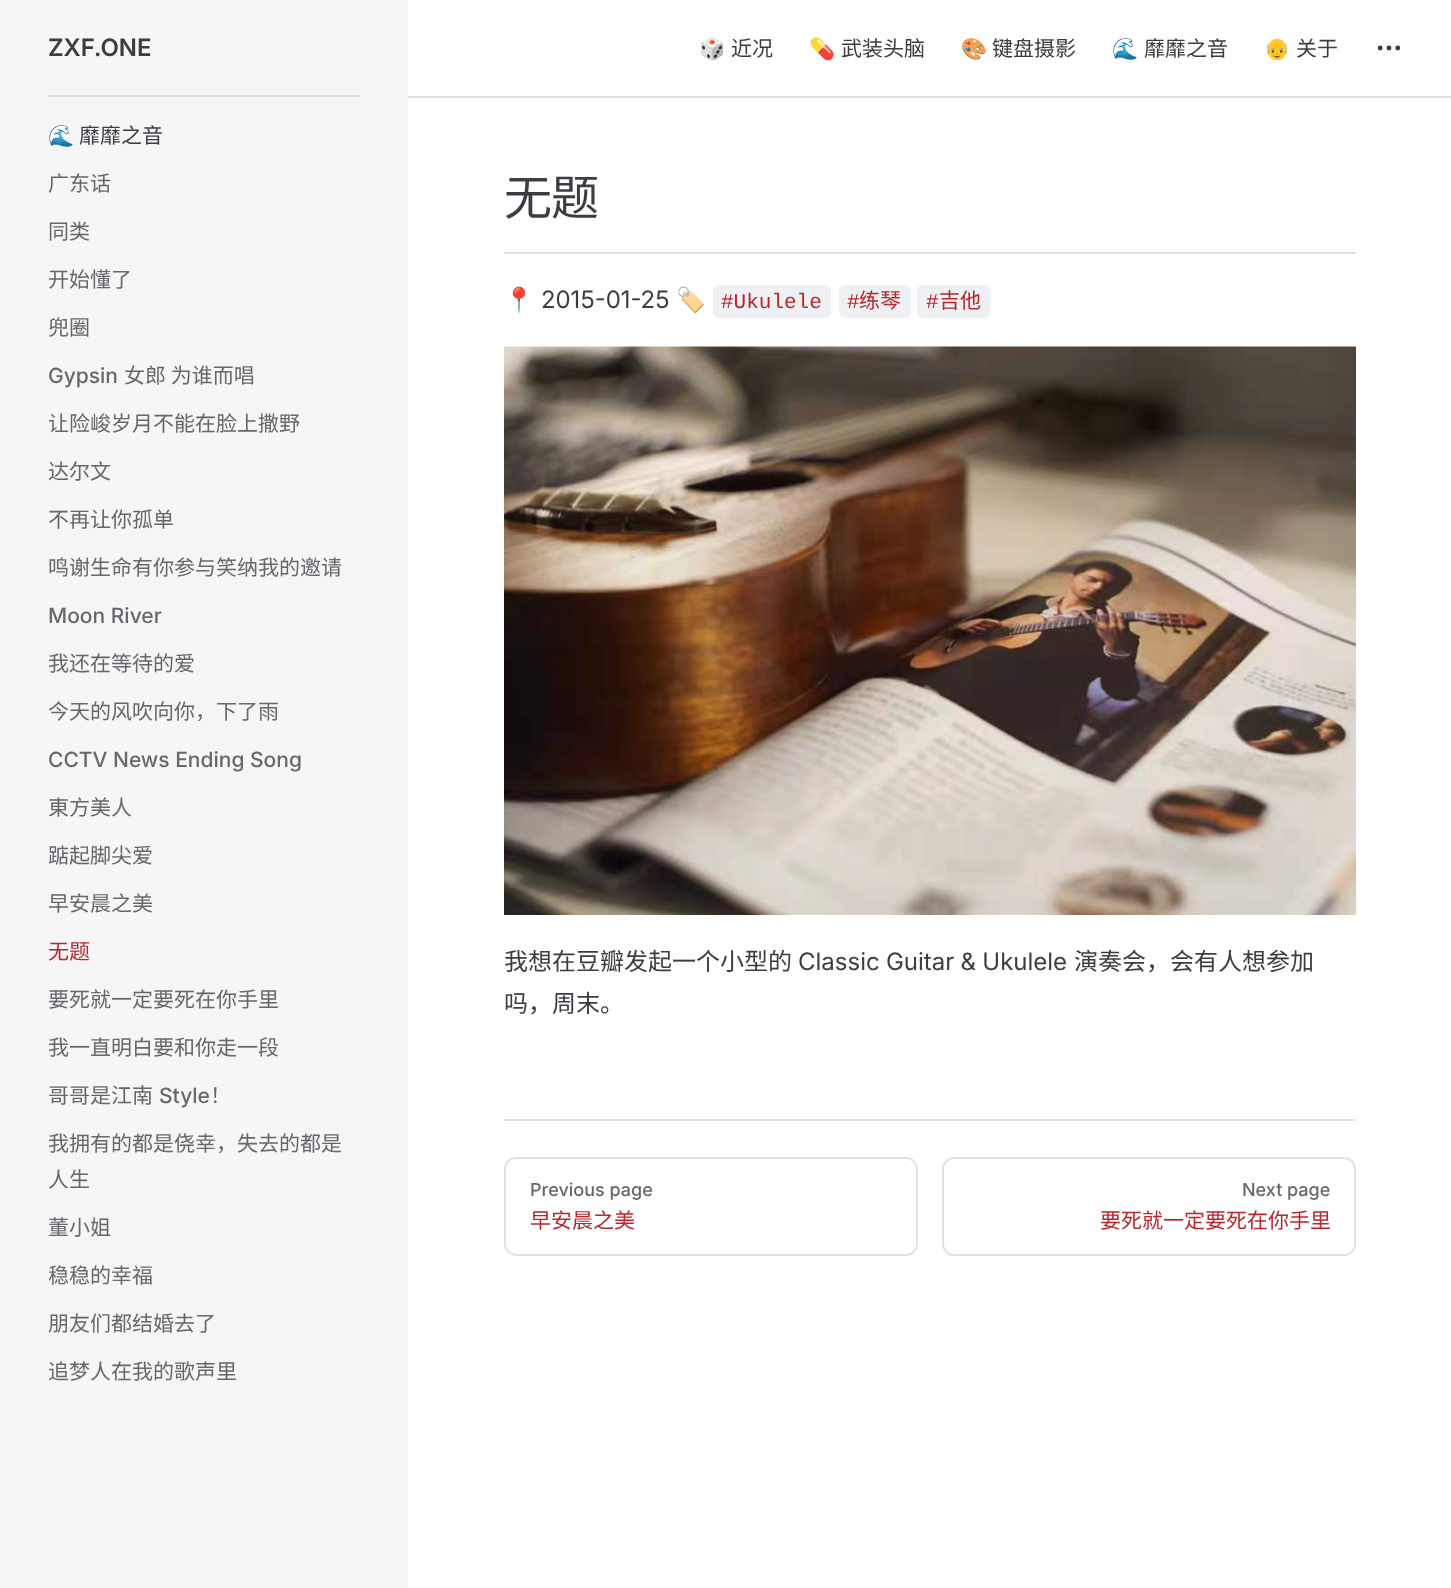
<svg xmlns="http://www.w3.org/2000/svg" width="1451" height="1588">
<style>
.a{font:600 24px Inter;fill:#3c3c43}
.b{font:21px 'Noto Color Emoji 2';fill:#3c3c43}
.c{font:21px Noto Sans CJK SC;fill:#3c3c43}
.d{font:21px Noto Sans CJK SC;fill:#67676c}
.e{font:500 21px Inter;fill:#67676c}
.f{font:21px Noto Sans CJK SC;fill:#b8272c}
.g{font:48px Noto Sans CJK SC;letter-spacing:-1px;fill:#3c3c43}
.h{font:24px Noto Color Emoji;fill:#3c3c43}
.i{font:24px Inter;fill:#3c3c43}
.j{font:21px Liberation Mono;fill:#b8272c}
.k{font:24px Noto Sans CJK SC;fill:#3c3c43}
.l{font:24px 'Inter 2';fill:#3c3c43}
.m{font:500 18px Inter;fill:#67676c}
</style>
<rect width="100%" height="100%" fill="#fff"/>
<path fill="#f6f6f7" d="M0 0h408v1588H0z"/>
<path fill="#e2e2e3" d="M48 95h312v2H48z"/>
<circle fill="none" stroke="#3c3c43" stroke-width="2.5" cx="1389" cy="48" r="1.2"/>
<circle fill="none" stroke="#3c3c43" stroke-width="2.5" cx="1397.8" cy="48" r="1.2"/>
<circle fill="none" stroke="#3c3c43" stroke-width="2.5" cx="1380.2" cy="48" r="1.2"/>
<path fill="#e2e2e3" d="M408 96h1043v2H408z"/>
<path fill="#e2e2e3" d="M504 252h852v2H504z"/>
<rect fill="#eff0f3" x="713" y="285" width="118" height="33" rx="6"/>
<rect fill="#eff0f3" x="839" y="285" width="72" height="33" rx="6"/>
<rect fill="#eff0f3" x="917" y="285" width="73" height="33" rx="6"/>
<image href="1.png" x="504" y="346" width="852" height="569"/>
<path fill="#e2e2e3" d="M504 1119h852v2H504z"/>
<rect fill="none" stroke="#e2e2e3" stroke-width="2" x="505" y="1158" width="412" height="97" rx="11"/>
<rect fill="none" stroke="#e2e2e3" stroke-width="2" x="943" y="1158" width="412" height="97" rx="11"/>
<text class="a" x="48" y="56">ZXF.ONE</text>
<text class="b" x="699" y="56">🎲</text>
<text class="c" x="731" y="56">近况</text>
<text class="b" x="809" y="56">💊</text>
<text class="c" x="841" y="56">武装头脑</text>
<text class="b" x="961" y="56">🎨</text>
<text class="c" x="992" y="56">键盘摄影</text>
<text class="b" x="1112" y="56">🌊</text>
<text class="c" x="1144" y="56">靡靡之音</text>
<text class="b" x="1264" y="56">👴</text>
<text class="c" x="1296" y="56">关于</text>
<text class="b" x="48" y="143">🌊</text>
<text class="c" x="79" y="143">靡靡之音</text>
<text class="d" x="48" y="191">广东话</text>
<text class="d" x="48" y="239">同类</text>
<text class="d" x="48" y="287">开始懂了</text>
<text class="d" x="48" y="335">兜圈</text>
<text class="e" x="48" y="383">Gypsin</text>
<text class="d" x="124" y="383">女郎 为谁而唱</text>
<text class="d" x="48" y="431">让险峻岁月不能在脸上撒野</text>
<text class="d" x="48" y="479">达尔文</text>
<text class="d" x="48" y="527">不再让你孤单</text>
<text class="d" x="48" y="575">鸣谢生命有你参与笑纳我的邀请</text>
<text class="e" x="48" y="623">Moon River</text>
<text class="d" x="48" y="671">我还在等待的爱</text>
<text class="d" x="48" y="719">今天的风吹向你，下了雨</text>
<text class="e" x="48" y="767">CCTV News Ending Song</text>
<text class="d" x="48" y="815">東方美人</text>
<text class="d" x="48" y="863">踮起脚尖爱</text>
<text class="d" x="48" y="911">早安晨之美</text>
<text class="f" x="48" y="959">无题</text>
<text class="d" x="48" y="1007">要死就一定要死在你手里</text>
<text class="d" x="48" y="1055">我一直明白要和你走一段</text>
<text class="d" x="48" y="1103">哥哥是江南</text>
<text class="e" x="159" y="1103">Style</text>
<text class="d" x="210" y="1103">！</text>
<text class="d" x="48" y="1151">我拥有的都是侥幸，失去的都是</text>
<text class="d" x="48" y="1187">人生</text>
<text class="d" x="48" y="1235">董小姐</text>
<text class="d" x="48" y="1283">稳稳的幸福</text>
<text class="d" x="48" y="1331">朋友们都结婚去了</text>
<text class="d" x="48" y="1379">追梦人在我的歌声里</text>
<text class="g" x="504" y="215">无题</text>
<text class="h" x="504" y="308">📍</text>
<text class="i" x="541" y="308">2015-01-25</text>
<text class="h" x="676" y="308">🏷️</text>
<text class="j" x="721" y="308">#Ukulele</text>
<text class="j" x="847" y="308">#</text>
<text class="f" x="859" y="308">练琴</text>
<text class="j" x="926" y="308">#</text>
<text class="f" x="939" y="308">吉他</text>
<text class="k" x="504" y="970">我想在豆瓣发起一个小型的</text>
<text class="l" x="798" y="970" word-spacing="-0.5">Classic Guitar &amp; Ukulele</text>
<text class="k" x="1074" y="970">演奏会，会有人想参加</text>
<text class="k" x="504" y="1012">吗，周末。</text>
<text class="m" x="530" y="1196">Previous page</text>
<text class="f" x="530" y="1228">早安晨之美</text>
<text class="m" x="1242" y="1196">Next page</text>
<text class="f" x="1100" y="1228">要死就一定要死在你手里</text>
</svg>
